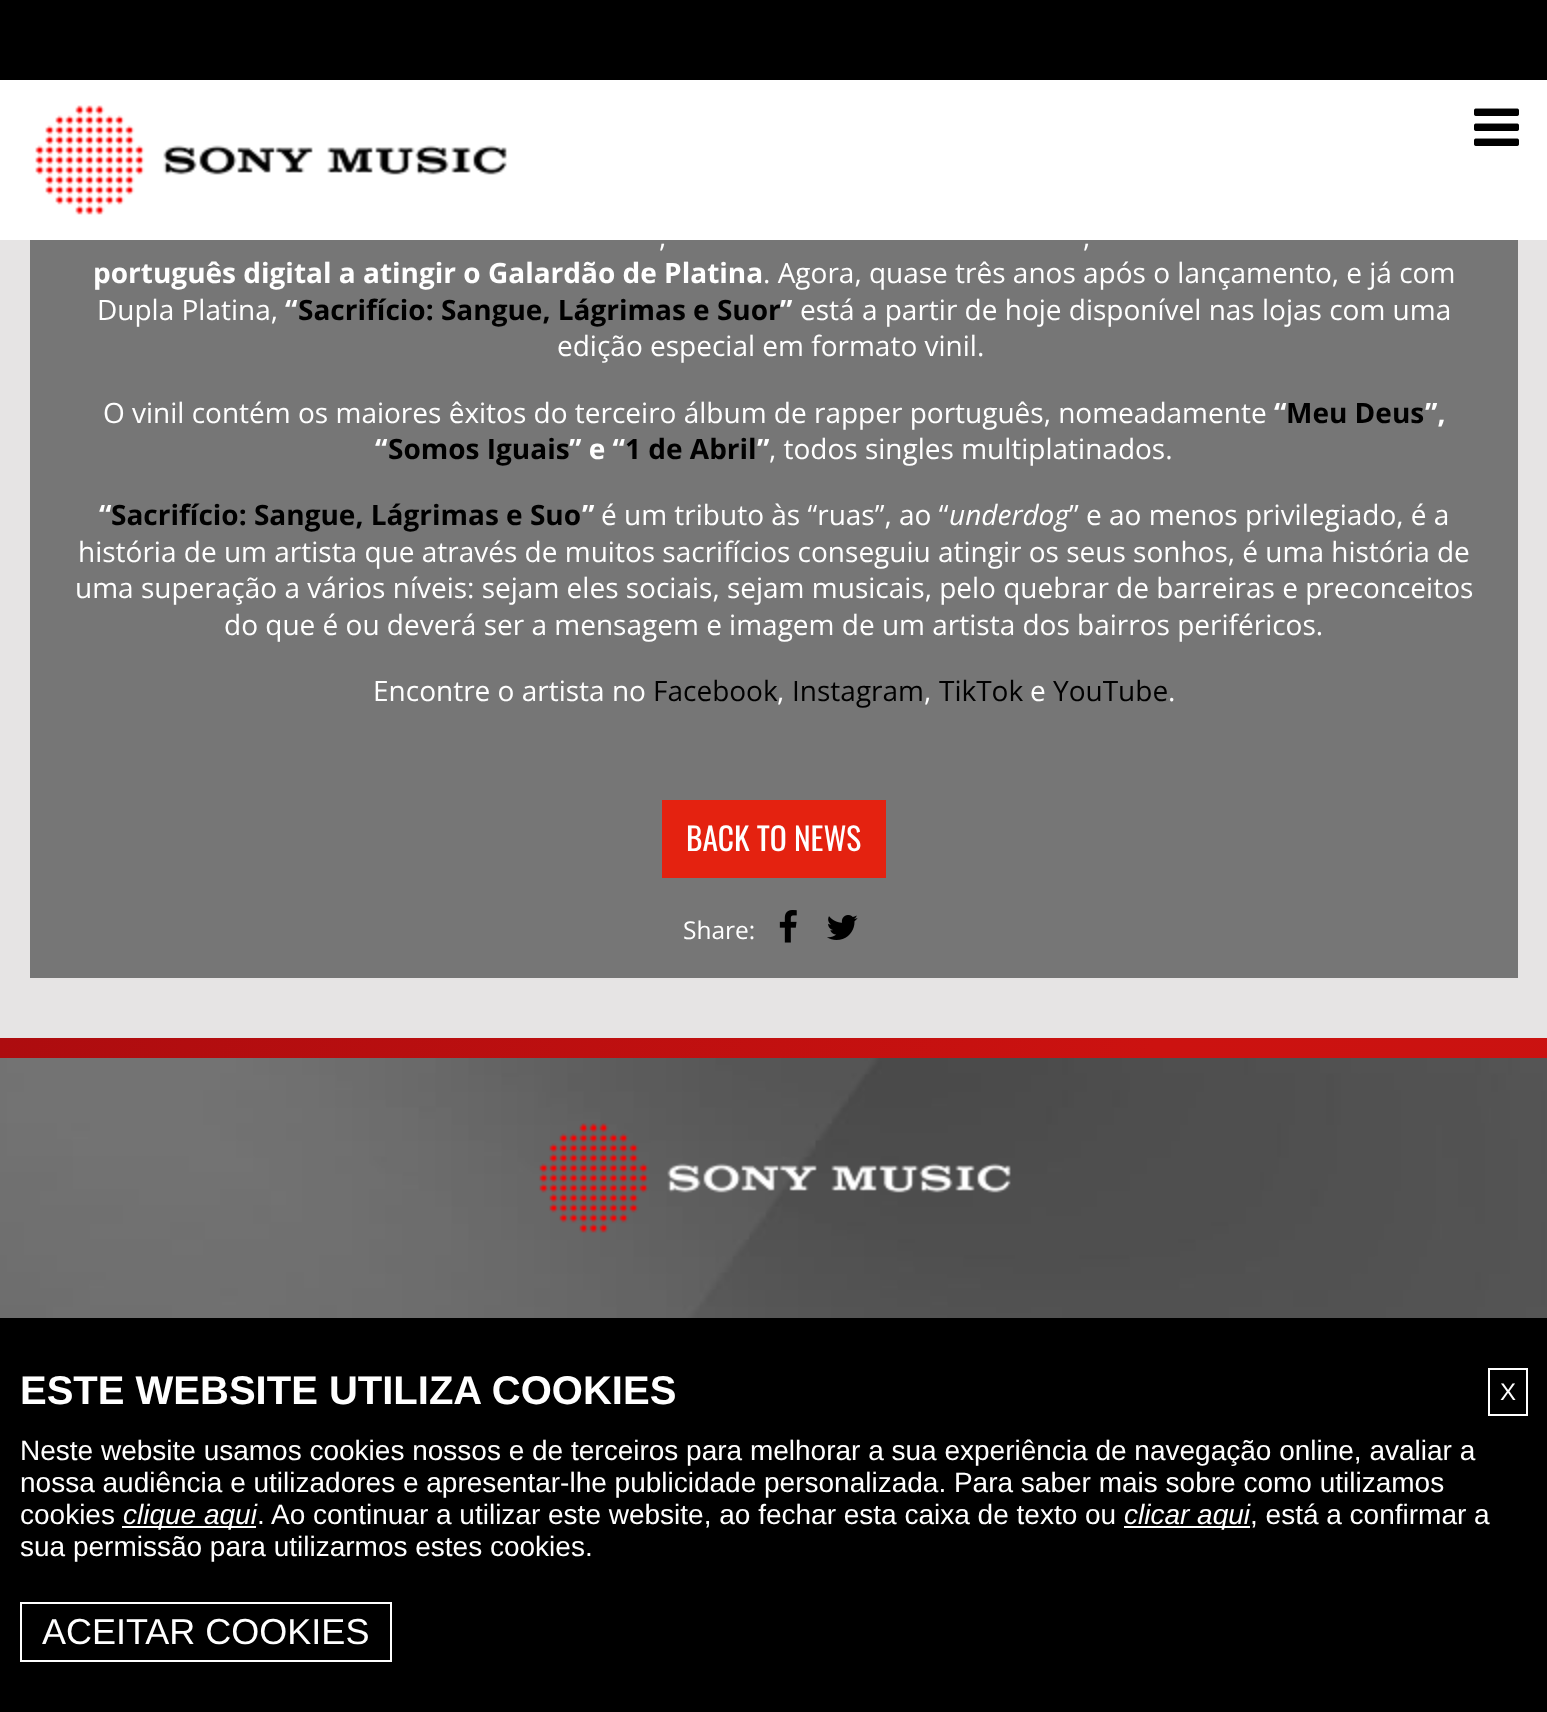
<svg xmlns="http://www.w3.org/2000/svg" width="1547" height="1712">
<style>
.a{font:28px Open Sans;fill:#fff}
.b{font:bold 28px Open Sans;fill:#fff}
.c{font:bold 28px Open Sans;fill:#000}
.d{font:italic 28px Open Sans;fill:#fff}
.e{font:28px Open Sans;fill:#000}
.f{font:31.5px Oswald;fill:#fff}
.g{font:24.5px Open Sans;fill:#fff}
.h{font:bold 40px Liberation Sans;fill:#fff}
.i{font:24px Liberation Sans;fill:#fff}
.j{font:28px Liberation Sans;fill:#fff}
.k{font:italic 28px Liberation Sans;fill:#fff}
.l{font:36px Liberation Sans;fill:#fff}
</style>
<defs>
<linearGradient id="g1" gradientUnits="userSpaceOnUse" x1="-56" y1="1178" x2="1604" y2="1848"><stop offset="0" stop-color="#ad0c0f"/><stop offset="0.6" stop-color="#cc1210"/><stop offset="1" stop-color="#c91211"/></linearGradient>
</defs>
<rect width="100%" height="100%" fill="#e6e4e4"/>
<path fill="#000" d="M0 0h1547v80H0z"/>
<path fill="#fff" d="M0 80h1547v160H0z"/>
<image href="1.png" x="35" y="105" width="472" height="110"/>
<image href="2.png" x="1474" y="108" width="45" height="38"/>
<path fill="#767676" d="M30 240h1488v738H30z"/>
<path fill="#e42210" d="M662 800h224v78H662z"/>
<image href="3.png" x="779" y="910" width="18" height="33"/>
<image href="4.png" x="827" y="915" width="31" height="25"/>
<path fill="url(#g1)" d="M0 1038h1547v20H0z"/>
<image href="5.png" x="0" y="1058" width="1547" height="260"/>
<image href="6.png" x="539" y="1123" width="472" height="110"/>
<path fill="#000" d="M0 1318h1547v394H0z"/>
<path fill="none" stroke="#fff" stroke-width="2" d="M1489 1369h38v46H1489z"/>
<path fill="#fff" d="M122 1526h134v2H122z"/>
<path fill="#fff" d="M1124 1526h126v2H1124z"/>
<path fill="none" stroke="#fff" stroke-width="2" d="M21 1603h370v58H21z"/>
<text class="a" x="659" y="247">,</text>
<text class="a" x="1083" y="247">,</text>
<text class="b" x="93" y="283">português digital a atingir o Galardão de Platina</text>
<text class="a" x="763" y="283">. Agora, quase três anos após o lançamento, e já com</text>
<text class="a" x="97" y="320">Dupla Platina,</text>
<text class="b" x="285" y="320">“</text>
<text class="c" x="298" y="320">Sacrifício: Sangue, Lágrimas e Suor</text>
<text class="b" x="780" y="320">”</text>
<text class="a" x="800" y="320">está a partir de hoje disponível nas lojas com uma</text>
<text class="a" x="557" y="356">edição especial em formato vinil.</text>
<text class="a" x="103" y="423">O vinil contém os maiores êxitos do terceiro álbum de rapper português, nomeadamente</text>
<text class="b" x="1274" y="423">“</text>
<text class="c" x="1286" y="423">Meu Deus</text>
<text class="b" x="1425" y="423">”,</text>
<text class="b" x="375" y="459">“</text>
<text class="c" x="388" y="459">Somos Iguais</text>
<text class="b" x="569" y="459">” e “</text>
<text class="c" x="625" y="459">1 de Abril</text>
<text class="b" x="757" y="459">”</text>
<text class="a" x="769" y="459">, todos singles multiplatinados.</text>
<text class="b" x="99" y="525">“</text>
<text class="c" x="111" y="525">Sacrifício: Sangue, Lágrimas e Suo</text>
<text class="b" x="582" y="525">”</text>
<text class="a" x="601" y="525">é um tributo às “ruas”, ao “</text>
<text class="d" x="949" y="525">underdog</text>
<text class="a" x="1069" y="525">” e ao menos privilegiado, é a</text>
<text class="a" x="78" y="562">história de um artista que através de muitos sacrifícios conseguiu atingir os seus sonhos, é uma história de</text>
<text class="a" x="75" y="598">uma superação a vários níveis: sejam eles sociais, sejam musicais, pelo quebrar de barreiras e preconceitos</text>
<text class="a" x="224" y="635">do que é ou deverá ser a mensagem e imagem de um artista dos bairros periféricos.</text>
<text class="a" x="373" y="701">Encontre o artista no</text>
<text class="e" x="653" y="701">Facebook</text>
<text class="a" x="777" y="701">,</text>
<text class="e" x="792" y="701">Instagram</text>
<text class="a" x="924" y="701">,</text>
<text class="e" x="939" y="701">TikTok</text>
<text class="a" x="1030" y="701">e</text>
<text class="e" x="1053" y="701">YouTube</text>
<text class="a" x="1168" y="701">.</text>
<text class="f" x="686" y="851">BACK TO NEWS</text>
<text class="g" x="683" y="939">Share:</text>
<text class="h" x="20" y="1404">ESTE WEBSITE UTILIZA COOKIES</text>
<text class="i" x="1500" y="1400">X</text>
<text class="j" x="20" y="1460">Neste website usamos cookies nossos e de terceiros para melhorar a sua experiência de navegação online, avaliar a</text>
<text class="j" x="20" y="1492">nossa audiência e utilizadores e apresentar-lhe publicidade personalizada. Para saber mais sobre como utilizamos</text>
<text class="j" x="20" y="1524">cookies</text>
<text class="k" x="123" y="1524">clique aqui</text>
<text class="j" x="257" y="1524">. Ao continuar a utilizar este website, ao fechar esta caixa de texto ou</text>
<text class="k" x="1124" y="1524">clicar aqui</text>
<text class="j" x="1250" y="1524">, está a confirmar a</text>
<text class="j" x="20" y="1556">sua permissão para utilizarmos estes cookies.</text>
<text class="l" x="42" y="1644">ACEITAR COOKIES</text>
</svg>
